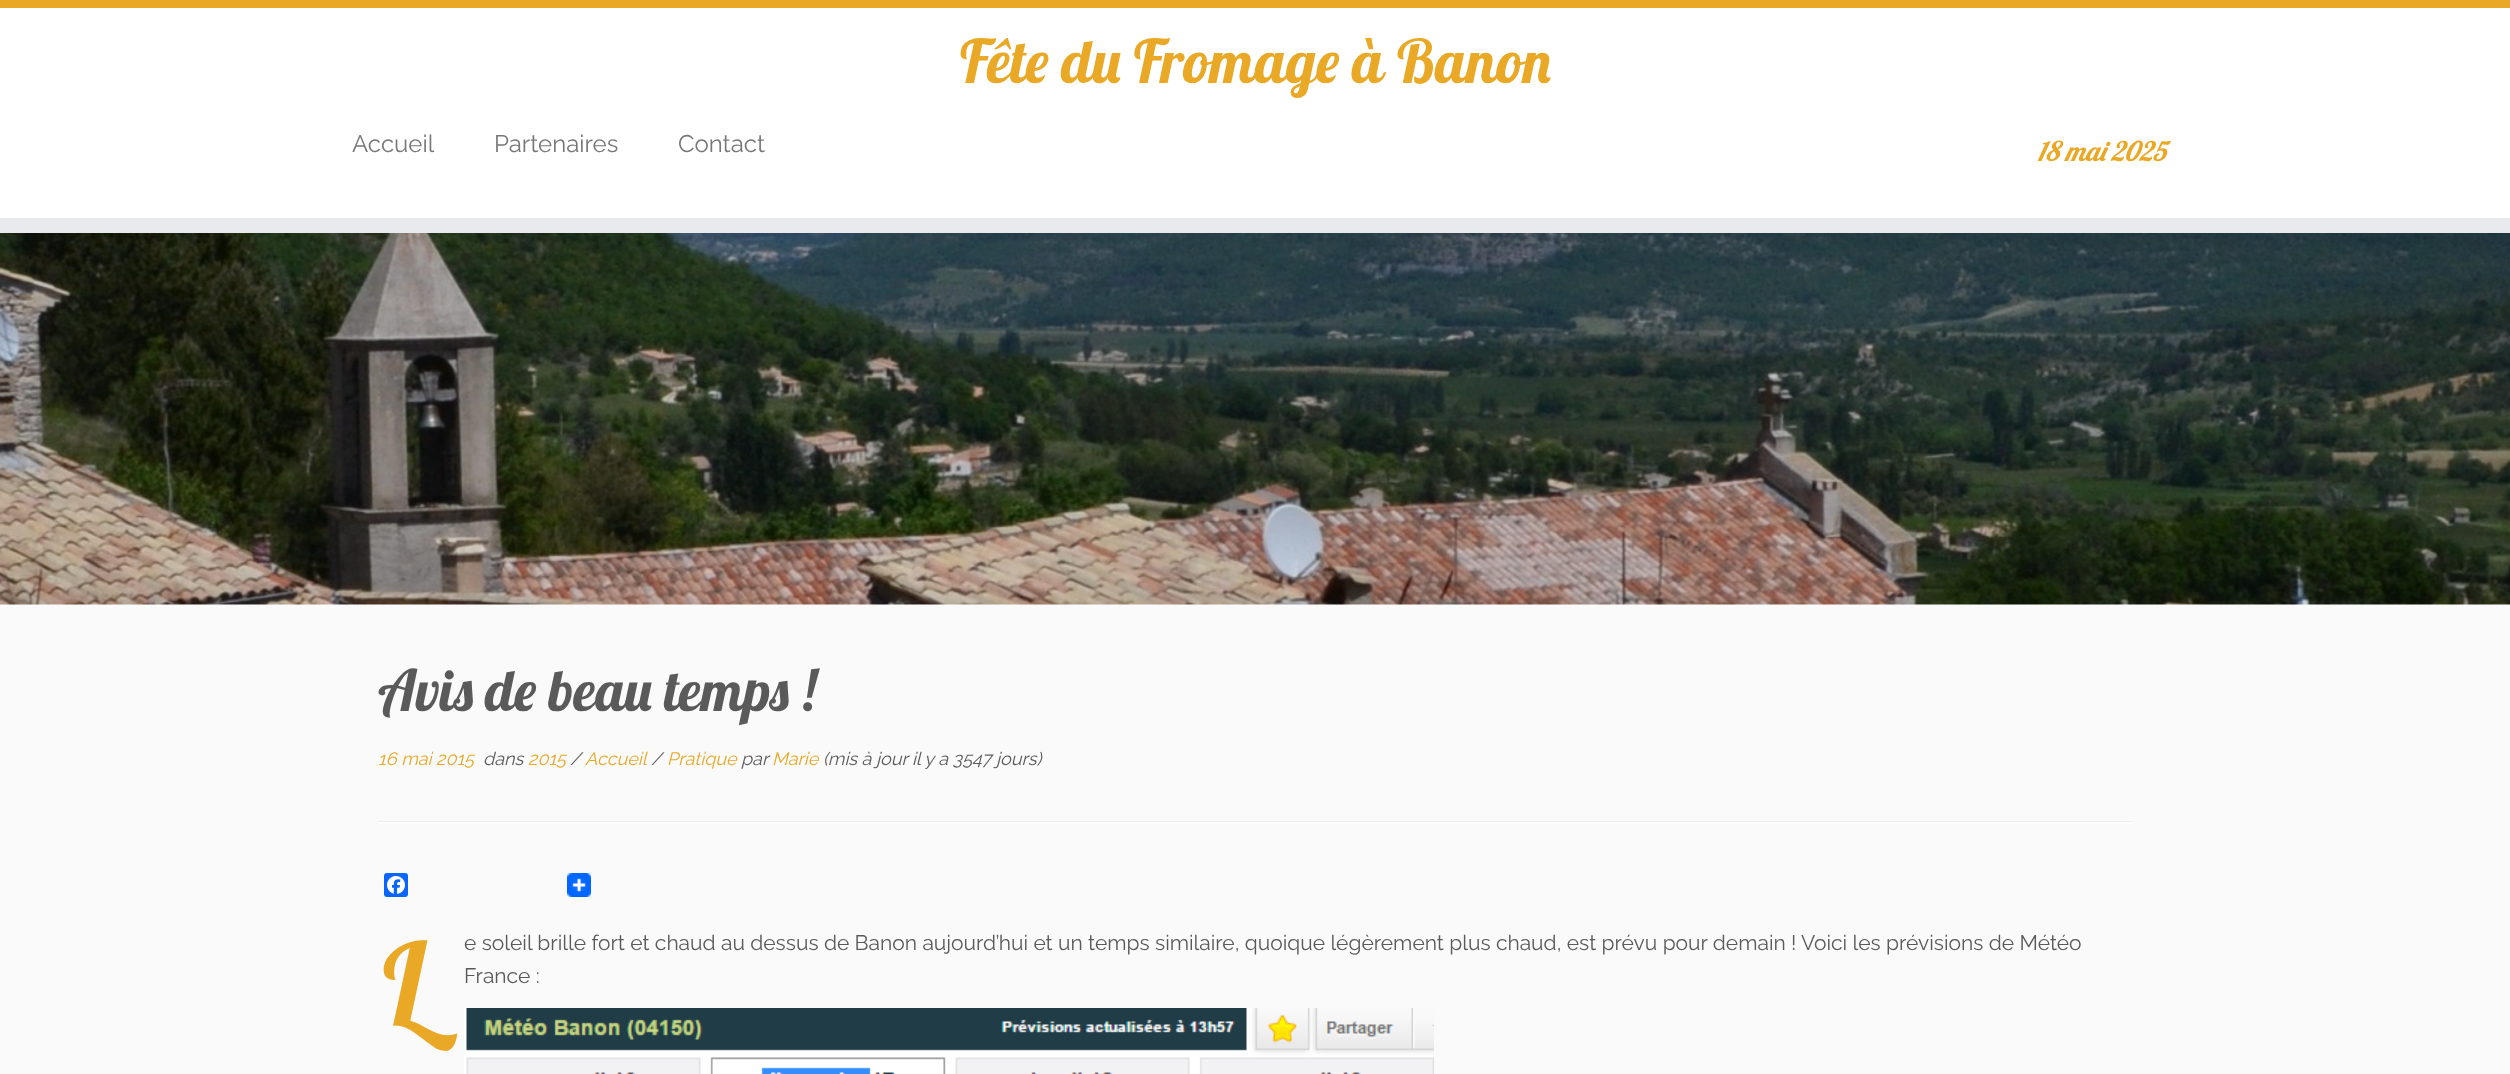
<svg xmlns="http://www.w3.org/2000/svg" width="2510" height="1074">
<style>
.a{font:60px Lobster;fill:#e9a825}
.b{font:100 24px Raleway;fill:#777}
.c{font:italic 27px Lobster;fill:#e9a825}
.d{font:57px Lobster;fill:#5a5a5a}
.e{font:italic 100 18px Raleway;fill:#e9a825}
.f{font:italic 100 18px Raleway;fill:#5a5a5a}
.g{font:112px Lobster;fill:#e9a825}
.h{font:100 21px Raleway;fill:#5a5a5a}
</style>
<rect width="100%" height="100%" fill="#fafafa"/>
<path fill="#fff" d="M0 8h2510v210H0z"/>
<path fill="#e9a825" d="M0 0h2510v8H0z"/>
<path fill="#e9eaee" d="M0 218h2510v15H0z"/>
<image href="1.png" x="0" y="233" width="2510" height="372"/>
<path fill="#eee" d="M378 821h1755v1H378z"/>
<path fill="#fff" d="M378 822h1755v2H378z"/>
<rect fill="#0866ff" x="384" y="873" width="24" height="24" rx="3"/>
<image href="2.png" x="387" y="876" width="18" height="18"/>
<image href="3.png" x="567" y="873" width="24" height="24"/>
<image href="4.png" x="464" y="1008" width="970" height="66"/>
<text class="a" x="960" y="83">Fête du Fromage à Banon</text>
<text class="b" x="352" y="152">Accueil</text>
<text class="b" x="494" y="152">Partenaires</text>
<text class="b" x="678" y="152">Contact</text>
<text class="c" x="2037" y="161">18 mai 2025</text>
<text class="d" x="378" y="711">Avis de beau temps !</text>
<text class="e" x="378" y="765">16 mai 2015</text>
<text class="f" x="483" y="765">dans</text>
<text class="e" x="528" y="765">2015</text>
<text class="f" x="570" y="765">/</text>
<text class="e" x="585" y="765">Accueil</text>
<text class="f" x="651" y="765">/</text>
<text class="e" x="667" y="765">Pratique</text>
<text class="f" x="741" y="765">par</text>
<text class="e" x="772" y="765">Marie</text>
<text class="f" x="823" y="765">(mis à jour il y a 3547 jours)</text>
<text class="g" x="383" y="1023">L</text>
<text class="h" x="464" y="950">e soleil brille fort et chaud au dessus de Banon aujourd’hui et un temps similaire, quoique légèrement plus chaud, est prévu pour demain ! Voici les prévisions de Météo</text>
<text class="h" x="464" y="983">France :</text>
</svg>
